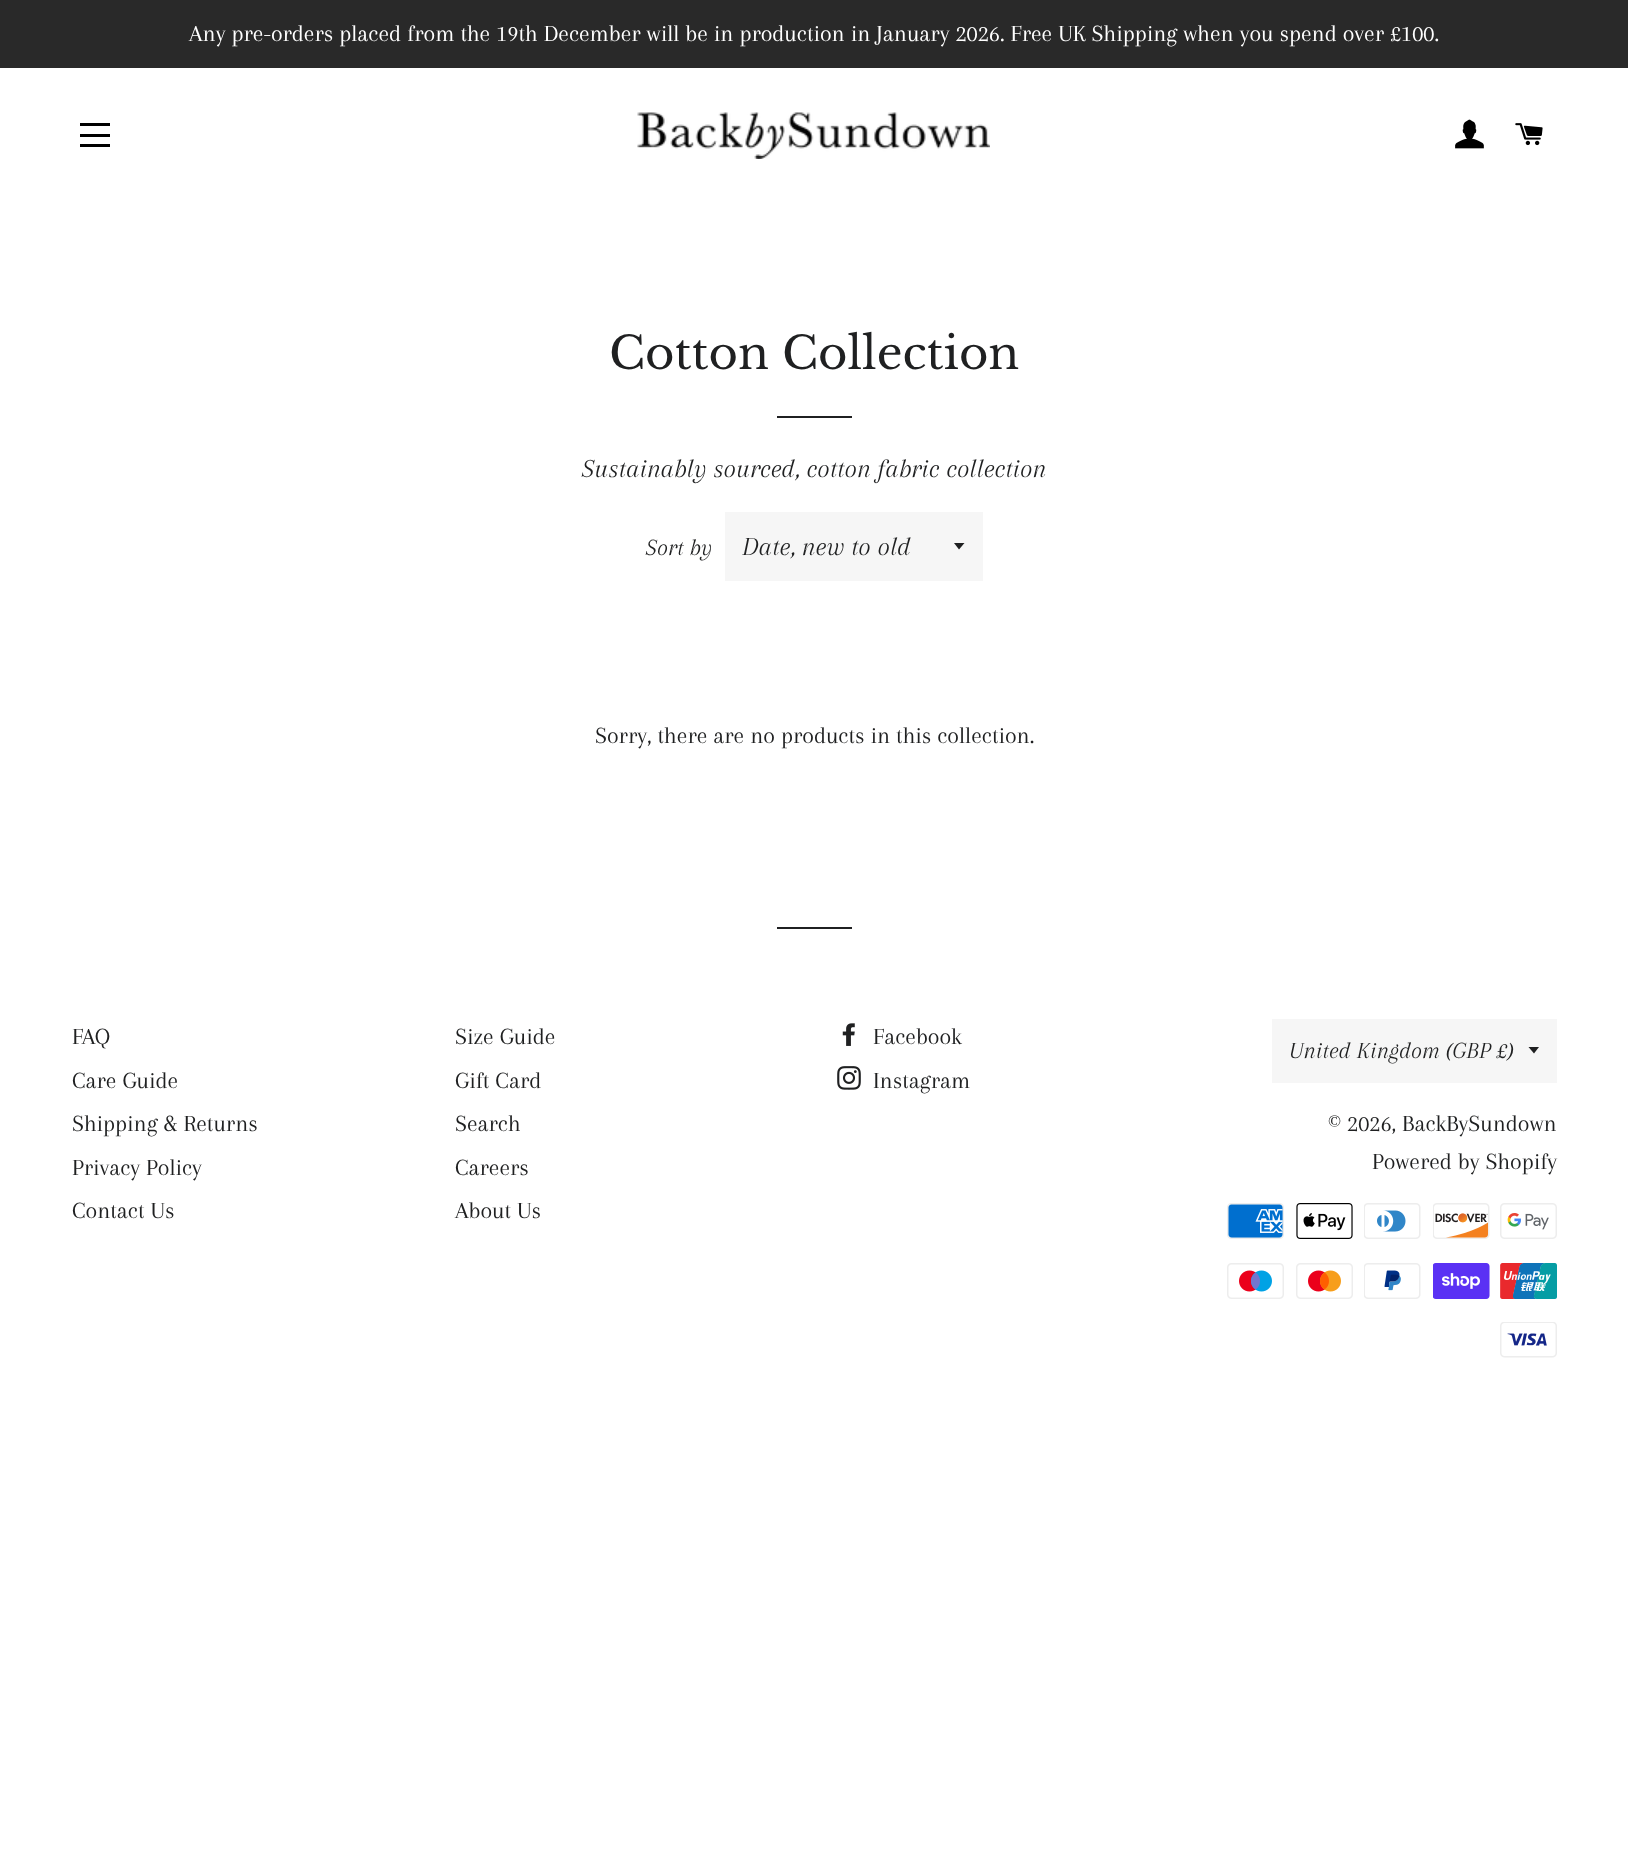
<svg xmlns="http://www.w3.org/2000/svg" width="1628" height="1872">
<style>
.a{font:24px Arapey;fill:#fff}
.b{font:45px Libre Baskerville;fill:#1f2021}
.c{font:italic 27px Arapey;fill:#1f2021}
.d{font:italic 24px Arapey;fill:#1f2021}
.e{font:24px Arapey;fill:#1f2021}
</style>
<rect width="100%" height="100%" fill="#fff"/>
<path fill="#292929" d="M0 0h1628v68H0z"/>
<path fill="#000" d="M80 123h30v3H80z"/>
<path fill="#000" d="M80 134h30v3H80z"/>
<path fill="#000" d="M80 144h30v3H80z"/>
<image href="1.png" x="637" y="112" width="353" height="47"/>
<image href="2.png" x="1455" y="119" width="29" height="30"/>
<image href="3.png" x="1515" y="123" width="28" height="23"/>
<path fill="#1f2021" d="M777 416h75v2H777z"/>
<path fill="#f6f6f6" d="M725 512h258v69H725z"/>
<path fill="#1f2021" d="M954 543l5 6.5l5.5-6.5z"/>
<path fill="#1f2021" d="M777 927h75v2H777z"/>
<image href="4.png" x="842" y="1023" width="13" height="23"/>
<image href="5.png" x="837" y="1066" width="24" height="24"/>
<path fill="#f6f6f6" d="M1272 1019h285v64H1272z"/>
<path fill="#1f2021" d="M1528.5 1047l5.5 6.5l5-6.5z"/>
<image href="6.png" x="1227" y="1203" width="57" height="36"/>
<image href="7.png" x="1296" y="1203" width="57" height="36"/>
<image href="8.png" x="1364" y="1203" width="57" height="36"/>
<image href="9.png" x="1433" y="1203" width="57" height="36"/>
<image href="10.png" x="1500" y="1203" width="57" height="36"/>
<image href="11.png" x="1227" y="1263" width="57" height="36"/>
<image href="12.png" x="1296" y="1263" width="57" height="36"/>
<image href="13.png" x="1364" y="1263" width="57" height="36"/>
<image href="14.png" x="1433" y="1263" width="57" height="36"/>
<image href="15.png" x="1500" y="1263" width="57" height="36"/>
<image href="16.png" x="1500" y="1322" width="57" height="36"/>
<text class="a" x="189" y="41">Any pre-orders placed from the 19th December will be in production in January 2026. Free UK Shipping when you spend over £100.</text>
<text class="b" x="609" y="369">Cotton Collection</text>
<text class="c" x="582" y="477">Sustainably sourced, cotton fabric collection</text>
<text class="d" x="646" y="555">Sort by</text>
<text class="c" x="742" y="555">Date, new to old</text>
<text class="e" x="595" y="743">Sorry, there are no products in this collection.</text>
<text class="e" x="72" y="1044">FAQ</text>
<text class="e" x="72" y="1088">Care Guide</text>
<text class="e" x="72" y="1131">Shipping &amp; Returns</text>
<text class="e" x="72" y="1175">Privacy Policy</text>
<text class="e" x="72" y="1218">Contact Us</text>
<text class="e" x="455" y="1044">Size Guide</text>
<text class="e" x="455" y="1088">Gift Card</text>
<text class="e" x="455" y="1131">Search</text>
<text class="e" x="455" y="1175">Careers</text>
<text class="e" x="455" y="1218">About Us</text>
<text class="e" x="873" y="1044">Facebook</text>
<text class="e" x="873" y="1088">Instagram</text>
<text class="d" x="1289" y="1058">United Kingdom (GBP £)</text>
<text class="e" x="1328" y="1131">© 2026, BackBySundown</text>
<text class="e" x="1372" y="1169">Powered by Shopify</text>
</svg>
